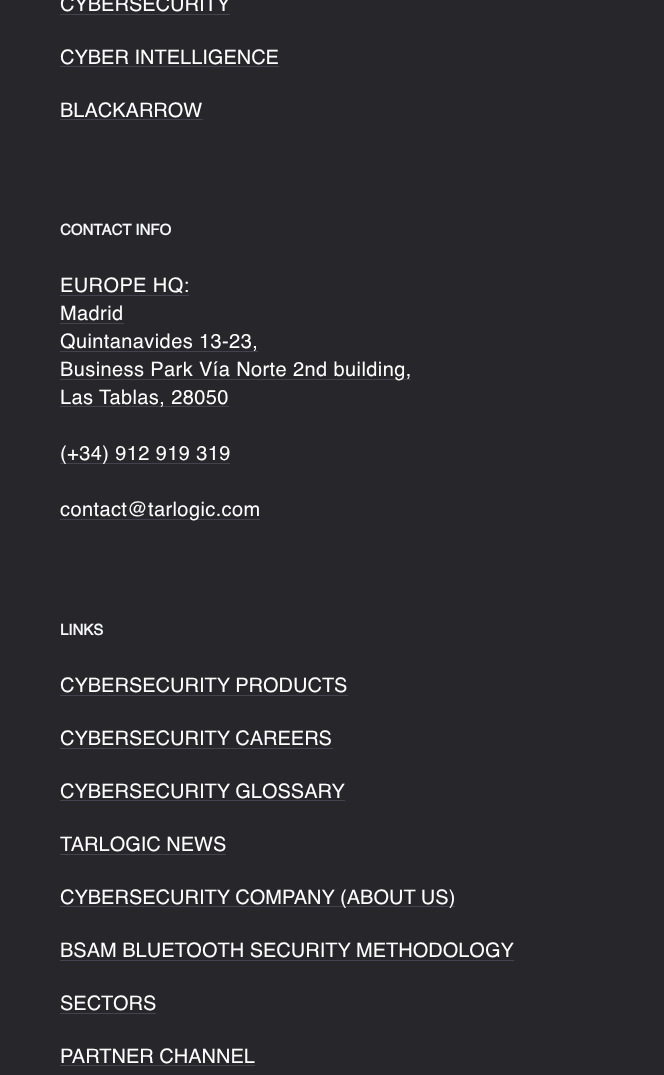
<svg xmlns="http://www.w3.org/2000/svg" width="664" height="1075">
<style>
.a{font:20px Helvetica;fill:#fff}
.b{font:bold 15px Helvetica;fill:#f5f6fa}
.c{font:20px Helvetica;letter-spacing:0.4px;fill:#fff}
</style>
<rect width="100%" height="100%" fill="#27262b"/>
<path fill="#44434d" d="M60 14h170v1H60z"/>
<path fill="#44434d" d="M60 66h219v1H60z"/>
<path fill="#44434d" d="M60 119h143v1H60z"/>
<path fill="#44434d" d="M60 295h129v1H60z"/>
<path fill="#44434d" d="M60 323h64v1H60z"/>
<path fill="#44434d" d="M60 351h198v1H60z"/>
<path fill="#44434d" d="M60 379h351v1H60z"/>
<path fill="#44434d" d="M60 406h169v1H60z"/>
<path fill="#44434d" d="M60 463h170v1H60z"/>
<path fill="#44434d" d="M60 519h200v1H60z"/>
<path fill="#44434d" d="M60 695h288v1H60z"/>
<path fill="#44434d" d="M60 748h273v1H60z"/>
<path fill="#44434d" d="M60 800h285v1H60z"/>
<path fill="#44434d" d="M60 854h166v1H60z"/>
<path fill="#44434d" d="M60 906h395v1H60z"/>
<path fill="#44434d" d="M60 960h454v1H60z"/>
<path fill="#44434d" d="M60 1013h96v1H60z"/>
<path fill="#44434d" d="M60 1065h195v1H60z"/>
<text class="a" x="60" y="11">CYBERSECURITY</text>
<text class="a" x="60" y="64">CYBER INTELLIGENCE</text>
<text class="a" x="60" y="117">BLACKARROW</text>
<text class="b" x="60" y="235">CONTACT INFO</text>
<text class="c" x="60" y="292">EUROPE HQ:</text>
<text class="c" x="60" y="320">Madrid</text>
<text class="c" x="60" y="348">Quintanavides 13-23,</text>
<text class="c" x="60" y="376">Business Park Vía Norte 2nd building,</text>
<text class="c" x="60" y="404">Las Tablas, 28050</text>
<text class="c" x="60" y="460">(+34) 912 919 319</text>
<text class="c" x="60" y="516">contact@tarlogic.com</text>
<text class="b" x="60" y="635">LINKS</text>
<text class="a" x="60" y="692">CYBERSECURITY PRODUCTS</text>
<text class="a" x="60" y="745">CYBERSECURITY CAREERS</text>
<text class="a" x="60" y="798">CYBERSECURITY GLOSSARY</text>
<text class="a" x="60" y="851">TARLOGIC NEWS</text>
<text class="a" x="60" y="904">CYBERSECURITY COMPANY (ABOUT US)</text>
<text class="a" x="60" y="957">BSAM BLUETOOTH SECURITY METHODOLOGY</text>
<text class="a" x="60" y="1010">SECTORS</text>
<text class="a" x="60" y="1063">PARTNER CHANNEL</text>
</svg>
